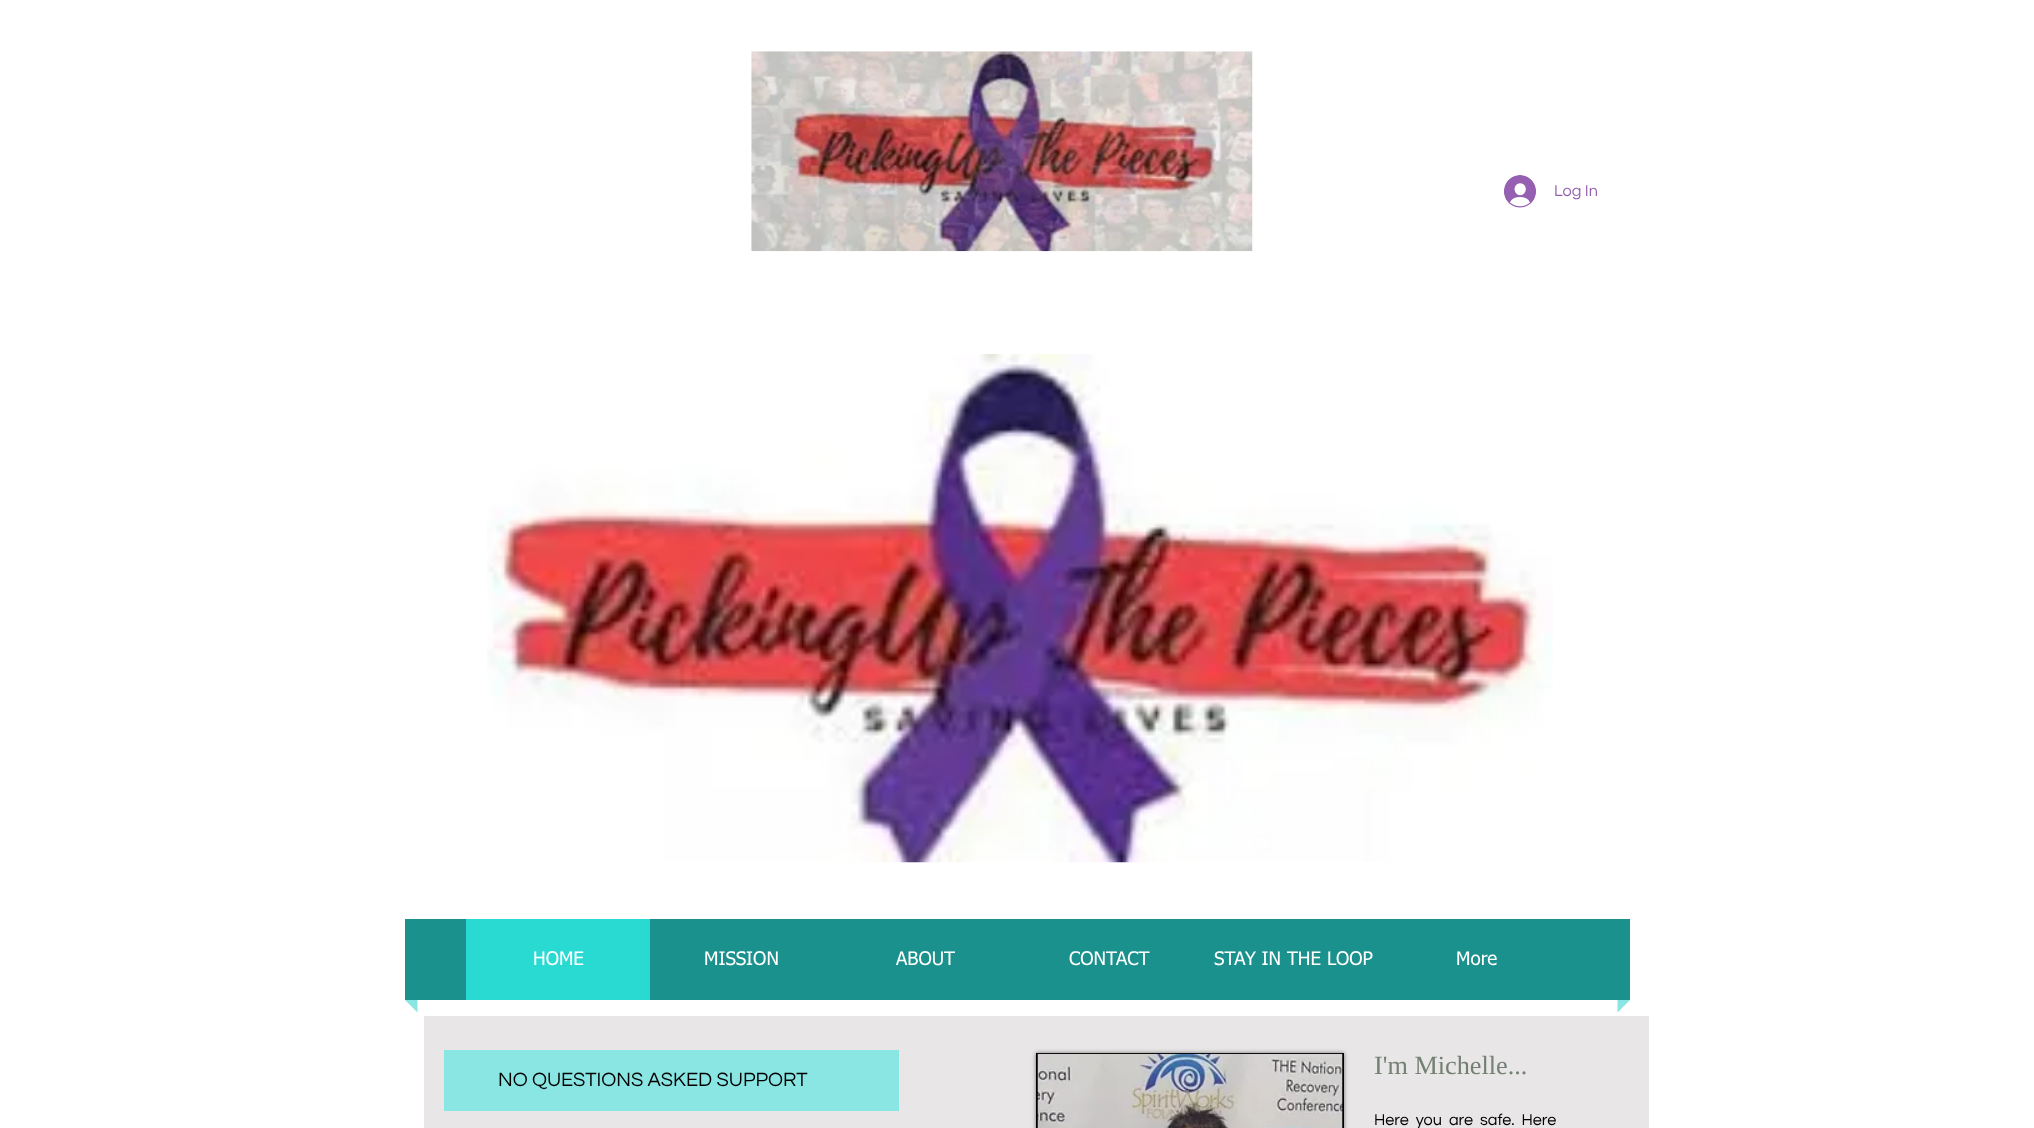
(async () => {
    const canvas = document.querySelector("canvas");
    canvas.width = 2034;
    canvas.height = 1128;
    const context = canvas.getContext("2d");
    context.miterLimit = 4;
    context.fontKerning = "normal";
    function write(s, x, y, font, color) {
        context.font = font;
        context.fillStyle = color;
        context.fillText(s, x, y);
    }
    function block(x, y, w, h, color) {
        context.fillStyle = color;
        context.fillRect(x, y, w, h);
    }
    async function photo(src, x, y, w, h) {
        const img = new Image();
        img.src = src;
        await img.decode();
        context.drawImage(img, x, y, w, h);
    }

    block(0, 0, 2034, 1128, "rgb(255, 255, 255)");
    await photo("media/1.png", 751, 51, 502, 201);
    await photo("media/2.png", 1504, 175, 32, 33);
    write("Log In", 1554, 196, "16.25px Questrial", "rgb(149, 96, 178)");
    await photo("media/3.png", 487, 354, 1066, 509);
    block(405, 919, 1225, 81, "rgb(27, 145, 141)");
    block(466, 919, 184, 81, "rgb(41, 218, 211)");
    write("HOME", 533, 965, "18.75px tahoma", "rgb(255, 255, 255)");
    write("MISSION", 704, 965, "18.75px tahoma", "rgb(255, 255, 255)");
    write("ABOUT", 896, 965, "18.75px tahoma", "rgb(255, 255, 255)");
    write("CONTACT", 1069, 965, "18.75px tahoma", "rgb(255, 255, 255)");
    write("STAY IN THE LOOP", 1214, 965, "18.75px tahoma", "rgb(255, 255, 255)");
    write("More", 1456, 965, "18.75px tahoma", "rgb(255, 255, 255)");
    context.fillStyle = "rgb(137, 230, 227)";
    context.beginPath();
    context.moveTo(405, 1000);
    context.lineTo(417.5, 1000);
    context.lineTo(417.5, 1012.5);
    context.closePath();
    context.fill();
    context.beginPath();
    context.moveTo(1617.5, 1000);
    context.lineTo(1630, 1000);
    context.lineTo(1617.5, 1012.5);
    context.closePath();
    context.fill();
    block(424, 1016, 1225, 112, "rgb(232, 230, 230)");
    block(444, 1050, 455, 61, "rgb(137, 230, 227)");
    write("NO QUESTIONS ASKED SUPPORT", 498, 1086, "20px Questrial", "rgb(0, 0, 0)");
    context.fillStyle = "rgba(0, 0, 0, 0.5)";
    context.filter = "blur(2px)";
    context.beginPath();
    context.rect(1036, 1053, 308, 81);
    context.fill();
    context.filter = "none";
    block(1036, 1053, 308, 75, "rgb(0, 0, 0)");
    await photo("media/4.png", 1037, 1053, 306, 75);
    write("I'm Michelle...", 1374, 1074, "26.25px Liberation Serif", "rgb(116, 128, 116)");
    context.wordSpacing = "3.5px";
    write("Here you are safe. Here", 1374, 1125, "16.25px Questrial", "rgb(0, 0, 0)");
})();
